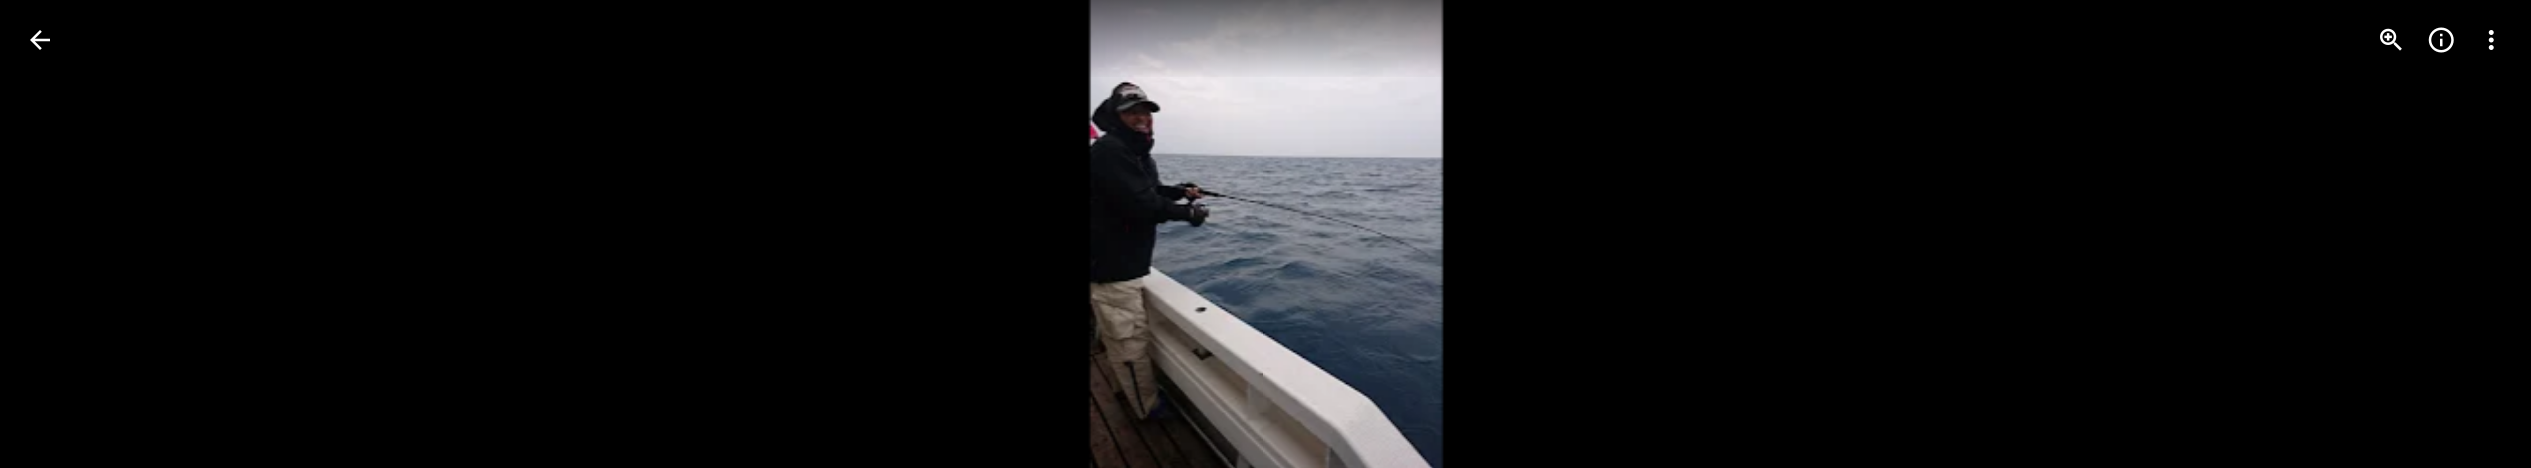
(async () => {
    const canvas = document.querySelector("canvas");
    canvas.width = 2531;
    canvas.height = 468;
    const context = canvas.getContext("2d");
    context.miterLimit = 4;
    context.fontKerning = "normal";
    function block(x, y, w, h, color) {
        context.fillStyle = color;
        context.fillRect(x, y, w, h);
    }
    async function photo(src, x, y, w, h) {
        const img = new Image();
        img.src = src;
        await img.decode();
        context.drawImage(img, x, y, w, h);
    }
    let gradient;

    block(0, 0, 2531, 468, "rgb(0, 0, 0)");
    await photo("media/5.png", 1088, 0, 356, 468);
    gradient = context.createLinearGradient(1266, 0, 1266, 80);
    gradient.addColorStop(0, "rgba(0, 0, 0, 0.6)");
    gradient.addColorStop(1, "rgba(0, 0, 0, 0)");
    context.fillStyle = gradient;
    context.fillRect(1088, 0, 356, 77);
    await photo("media/1.png", 30, 30, 20, 20);
    await photo("media/2.png", 2380, 28, 22, 23);
    await photo("media/3.png", 2428, 27, 26, 26);
    await photo("media/4.png", 2488, 30, 6, 20);
})();
